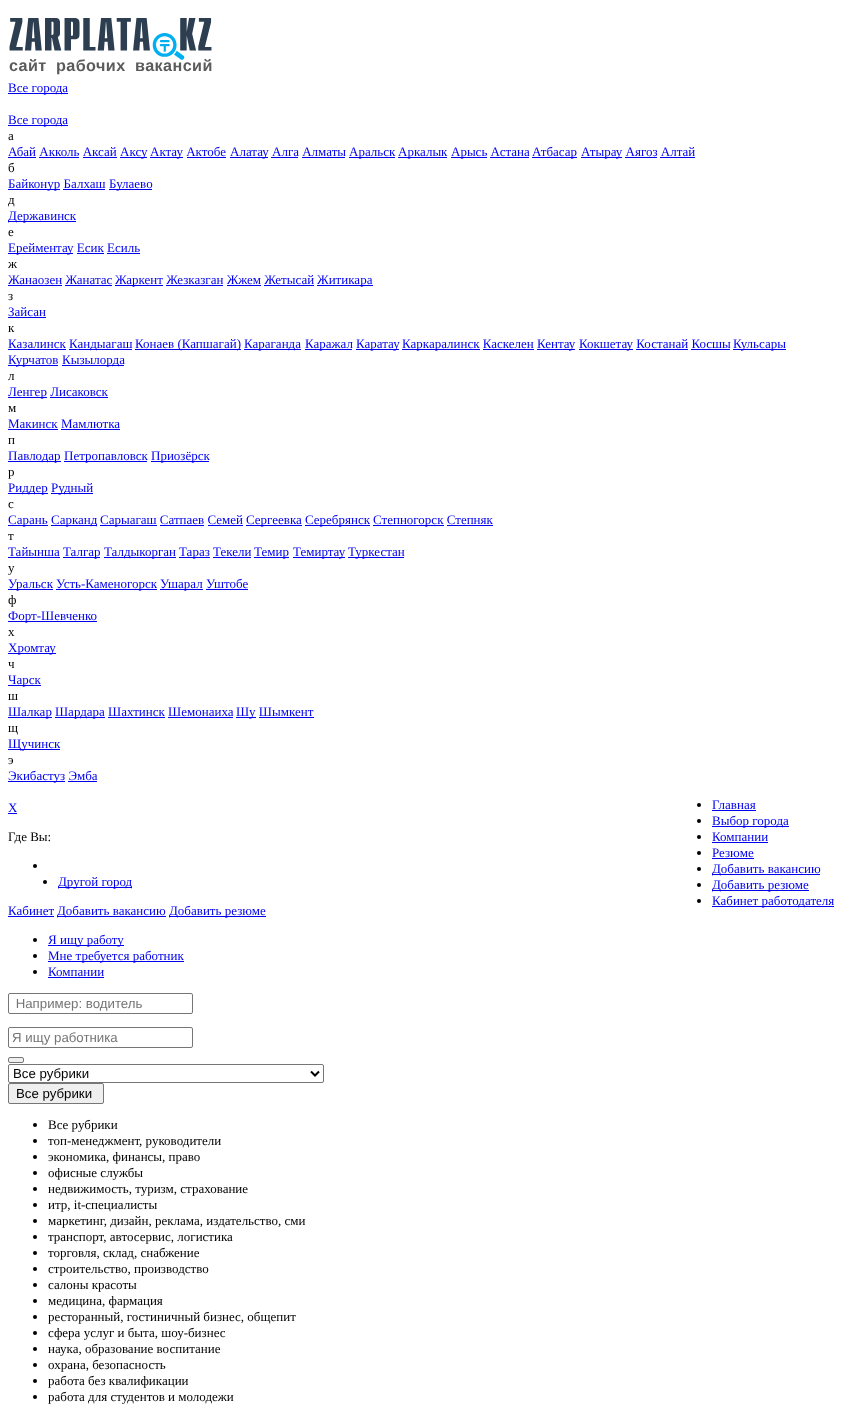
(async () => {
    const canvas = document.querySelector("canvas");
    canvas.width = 842;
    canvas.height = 1404;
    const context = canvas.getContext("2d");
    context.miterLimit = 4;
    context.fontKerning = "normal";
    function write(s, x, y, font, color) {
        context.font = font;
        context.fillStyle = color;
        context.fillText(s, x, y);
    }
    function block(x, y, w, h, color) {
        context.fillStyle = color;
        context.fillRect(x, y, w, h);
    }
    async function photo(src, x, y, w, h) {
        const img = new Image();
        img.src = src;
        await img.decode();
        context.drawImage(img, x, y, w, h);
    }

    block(0, 0, 842, 1404, "rgb(255, 255, 255)");
    await photo("media/1.png", 9, 18, 203, 57);
    block(8, 93, 60, 1, "rgb(0, 0, 238)");
    write("Все города", 8, 92, "13px Liberation Serif", "rgb(0, 0, 238)");
    block(8, 125, 60, 1, "rgb(0, 0, 238)");
    write("Все города", 8, 124, "13px Liberation Serif", "rgb(0, 0, 238)");
    write("а", 8, 140, "13px Liberation Serif", "rgb(0, 0, 0)");
    write("Абай Акколь Аксай", 8, 156, "13px Liberation Serif", "rgb(0, 0, 238)");
    block(8, 157, 28, 1, "rgb(0, 0, 238)");
    block(120, 157, 27, 1, "rgb(0, 0, 238)");
    write("Аксу", 120, 156, "13px Liberation Serif", "rgb(0, 0, 238)");
    block(150, 157, 33, 1, "rgb(0, 0, 238)");
    write("Актау Актобе", 150, 156, "13px Liberation Serif", "rgb(0, 0, 238)");
    block(230, 157, 38, 1, "rgb(0, 0, 238)");
    write("Алатау Алга Алматы", 230, 156, "13px Liberation Serif", "rgb(0, 0, 238)");
    block(349, 157, 46, 1, "rgb(0, 0, 238)");
    write("Аральск", 349, 156, "13px Liberation Serif", "rgb(0, 0, 238)");
    block(398, 157, 49, 1, "rgb(0, 0, 238)");
    write("Аркалык", 398, 156, "13px Liberation Serif", "rgb(0, 0, 238)");
    block(451, 157, 36, 1, "rgb(0, 0, 238)");
    write("Арысь Астана", 451, 156, "13px Liberation Serif", "rgb(0, 0, 238)");
    block(532, 157, 45, 1, "rgb(0, 0, 238)");
    write("Атбасар", 532, 156, "13px Liberation Serif", "rgb(0, 0, 238)");
    block(581, 157, 41, 1, "rgb(0, 0, 238)");
    write("Атырау Аягоз Алтай", 581, 156, "13px Liberation Serif", "rgb(0, 0, 238)");
    block(39, 157, 40, 1, "rgb(0, 0, 238)");
    block(83, 157, 34, 1, "rgb(0, 0, 238)");
    block(187, 157, 39, 1, "rgb(0, 0, 238)");
    block(271, 157, 27, 1, "rgb(0, 0, 238)");
    block(302, 157, 43, 1, "rgb(0, 0, 238)");
    block(490, 157, 39, 1, "rgb(0, 0, 238)");
    block(625, 157, 32, 1, "rgb(0, 0, 238)");
    block(660, 157, 35, 1, "rgb(0, 0, 238)");
    write("б", 8, 172, "13px Liberation Serif", "rgb(0, 0, 0)");
    block(8, 189, 52, 1, "rgb(0, 0, 238)");
    write("Байконур Балхаш", 8, 188, "13px Liberation Serif", "rgb(0, 0, 238)");
    block(109, 189, 43, 1, "rgb(0, 0, 238)");
    write("Булаево", 109, 188, "13px Liberation Serif", "rgb(0, 0, 238)");
    block(63, 189, 42, 1, "rgb(0, 0, 238)");
    write("д", 8, 204, "13px Liberation Serif", "rgb(0, 0, 0)");
    block(8, 221, 68, 1, "rgb(0, 0, 238)");
    write("Державинск", 8, 220, "13px Liberation Serif", "rgb(0, 0, 238)");
    write("е", 8, 236, "13px Liberation Serif", "rgb(0, 0, 0)");
    block(8, 253, 65, 1, "rgb(0, 0, 238)");
    write("Ерейментау Есик Есиль", 8, 252, "13px Liberation Serif", "rgb(0, 0, 238)");
    block(77, 253, 27, 1, "rgb(0, 0, 238)");
    block(107, 253, 33, 1, "rgb(0, 0, 238)");
    write("ж", 8, 268, "13px Liberation Serif", "rgb(0, 0, 0)");
    write("Жанаозен Жанатас", 8, 284, "13px Liberation Serif", "rgb(0, 0, 238)");
    block(8, 285, 54, 1, "rgb(0, 0, 238)");
    block(115, 285, 48, 1, "rgb(0, 0, 238)");
    write("Жаркент Жезказган Жжем Жетысай", 115, 284, "13px Liberation Serif", "rgb(0, 0, 238)");
    block(317, 285, 56, 1, "rgb(0, 0, 238)");
    write("Житикара", 317, 284, "13px Liberation Serif", "rgb(0, 0, 238)");
    block(65, 285, 47, 1, "rgb(0, 0, 238)");
    block(166, 285, 57, 1, "rgb(0, 0, 238)");
    block(227, 285, 34, 1, "rgb(0, 0, 238)");
    block(264, 285, 50, 1, "rgb(0, 0, 238)");
    write("з", 8, 300, "13px Liberation Serif", "rgb(0, 0, 0)");
    write("Зайсан", 8, 316, "13px Liberation Serif", "rgb(0, 0, 238)");
    block(8, 317, 38, 1, "rgb(0, 0, 238)");
    write("к", 8, 332, "13px Liberation Serif", "rgb(0, 0, 0)");
    write("Казалинск", 8, 348, "13px Liberation Serif", "rgb(0, 0, 238)");
    block(8, 349, 58, 1, "rgb(0, 0, 238)");
    block(69, 349, 63, 1, "rgb(0, 0, 238)");
    write("Кандыагаш", 69, 348, "13px Liberation Serif", "rgb(0, 0, 238)");
    block(135, 349, 106, 1, "rgb(0, 0, 238)");
    write("Конаев (Капшагай)", 135, 348, "13px Liberation Serif", "rgb(0, 0, 238)");
    block(244, 349, 57, 1, "rgb(0, 0, 238)");
    write("Караганда", 244, 348, "13px Liberation Serif", "rgb(0, 0, 238)");
    block(305, 349, 47, 1, "rgb(0, 0, 238)");
    write("Каражал", 305, 348, "13px Liberation Serif", "rgb(0, 0, 238)");
    block(356, 349, 43, 1, "rgb(0, 0, 238)");
    write("Каратау", 356, 348, "13px Liberation Serif", "rgb(0, 0, 238)");
    block(402, 349, 78, 1, "rgb(0, 0, 238)");
    write("Каркаралинск Каскелен", 402, 348, "13px Liberation Serif", "rgb(0, 0, 238)");
    block(537, 349, 38, 1, "rgb(0, 0, 238)");
    write("Кентау", 537, 348, "13px Liberation Serif", "rgb(0, 0, 238)");
    block(579, 349, 54, 1, "rgb(0, 0, 238)");
    write("Кокшетау Костанай Косшы", 579, 348, "13px Liberation Serif", "rgb(0, 0, 238)");
    block(733, 349, 53, 1, "rgb(0, 0, 238)");
    write("Кульсары", 733, 348, "13px Liberation Serif", "rgb(0, 0, 238)");
    block(483, 349, 51, 1, "rgb(0, 0, 238)");
    block(636, 349, 52, 1, "rgb(0, 0, 238)");
    block(691, 349, 39, 1, "rgb(0, 0, 238)");
    block(8, 365, 50, 1, "rgb(0, 0, 238)");
    write("Курчатов", 8, 364, "13px Liberation Serif", "rgb(0, 0, 238)");
    block(62, 365, 62, 1, "rgb(0, 0, 238)");
    write("Кызылорда", 62, 364, "13px Liberation Serif", "rgb(0, 0, 238)");
    write("л", 8, 380, "13px Liberation Serif", "rgb(0, 0, 0)");
    block(8, 397, 39, 1, "rgb(0, 0, 238)");
    write("Ленгер Лисаковск", 8, 396, "13px Liberation Serif", "rgb(0, 0, 238)");
    block(50, 397, 58, 1, "rgb(0, 0, 238)");
    write("м", 8, 412, "13px Liberation Serif", "rgb(0, 0, 0)");
    write("Макинск Мамлютка", 8, 428, "13px Liberation Serif", "rgb(0, 0, 238)");
    block(8, 429, 50, 1, "rgb(0, 0, 238)");
    block(61, 429, 59, 1, "rgb(0, 0, 238)");
    write("п", 8, 444, "13px Liberation Serif", "rgb(0, 0, 0)");
    block(8, 461, 53, 1, "rgb(0, 0, 238)");
    write("Павлодар", 8, 460, "13px Liberation Serif", "rgb(0, 0, 238)");
    block(64, 461, 83, 1, "rgb(0, 0, 238)");
    write("Петропавловск", 64, 460, "13px Liberation Serif", "rgb(0, 0, 238)");
    block(151, 461, 58, 1, "rgb(0, 0, 238)");
    write("Приозёрск", 151, 460, "13px Liberation Serif", "rgb(0, 0, 238)");
    write("р", 8, 476, "13px Liberation Serif", "rgb(0, 0, 0)");
    block(8, 493, 40, 1, "rgb(0, 0, 238)");
    write("Риддер", 8, 492, "13px Liberation Serif", "rgb(0, 0, 238)");
    block(51, 493, 42, 1, "rgb(0, 0, 238)");
    write("Рудный", 51, 492, "13px Liberation Serif", "rgb(0, 0, 238)");
    write("с", 8, 508, "13px Liberation Serif", "rgb(0, 0, 0)");
    block(8, 525, 40, 1, "rgb(0, 0, 238)");
    write("Сарань", 8, 524, "13px Liberation Serif", "rgb(0, 0, 238)");
    block(51, 525, 46, 1, "rgb(0, 0, 238)");
    write("Сарканд", 51, 524, "13px Liberation Serif", "rgb(0, 0, 238)");
    block(100, 525, 57, 1, "rgb(0, 0, 238)");
    write("Сарыагаш Сатпаев Семей", 100, 524, "13px Liberation Serif", "rgb(0, 0, 238)");
    block(246, 525, 56, 1, "rgb(0, 0, 238)");
    write("Сергеевка", 246, 524, "13px Liberation Serif", "rgb(0, 0, 238)");
    block(305, 525, 65, 1, "rgb(0, 0, 238)");
    write("Серебрянск", 305, 524, "13px Liberation Serif", "rgb(0, 0, 238)");
    block(373, 525, 71, 1, "rgb(0, 0, 238)");
    write("Степногорск Степняк", 373, 524, "13px Liberation Serif", "rgb(0, 0, 238)");
    block(160, 525, 44, 1, "rgb(0, 0, 238)");
    block(208, 525, 35, 1, "rgb(0, 0, 238)");
    block(447, 525, 46, 1, "rgb(0, 0, 238)");
    write("т", 8, 540, "13px Liberation Serif", "rgb(0, 0, 0)");
    write("Тайынша", 8, 556, "13px Liberation Serif", "rgb(0, 0, 238)");
    block(8, 557, 52, 1, "rgb(0, 0, 238)");
    block(63, 557, 37, 1, "rgb(0, 0, 238)");
    write("Талгар", 63, 556, "13px Liberation Serif", "rgb(0, 0, 238)");
    block(104, 557, 72, 1, "rgb(0, 0, 238)");
    write("Талдыкорган", 104, 556, "13px Liberation Serif", "rgb(0, 0, 238)");
    block(179, 557, 31, 1, "rgb(0, 0, 238)");
    write("Тараз Текели", 179, 556, "13px Liberation Serif", "rgb(0, 0, 238)");
    block(254, 557, 35, 1, "rgb(0, 0, 238)");
    write("Темир", 254, 556, "13px Liberation Serif", "rgb(0, 0, 238)");
    block(293, 557, 52, 1, "rgb(0, 0, 238)");
    write("Темиртау", 293, 556, "13px Liberation Serif", "rgb(0, 0, 238)");
    block(348, 557, 56, 1, "rgb(0, 0, 238)");
    write("Туркестан", 348, 556, "13px Liberation Serif", "rgb(0, 0, 238)");
    block(213, 557, 38, 1, "rgb(0, 0, 238)");
    write("у", 8, 572, "13px Liberation Serif", "rgb(0, 0, 0)");
    block(8, 589, 45, 1, "rgb(0, 0, 238)");
    write("Уральск", 8, 588, "13px Liberation Serif", "rgb(0, 0, 238)");
    block(56, 589, 101, 1, "rgb(0, 0, 238)");
    write("Усть-Каменогорск", 56, 588, "13px Liberation Serif", "rgb(0, 0, 238)");
    block(160, 589, 43, 1, "rgb(0, 0, 238)");
    write("Ушарал Уштобе", 160, 588, "13px Liberation Serif", "rgb(0, 0, 238)");
    block(206, 589, 42, 1, "rgb(0, 0, 238)");
    write("ф", 8, 604, "13px Liberation Serif", "rgb(0, 0, 0)");
    block(8, 621, 89, 1, "rgb(0, 0, 238)");
    write("Форт-Шевченко", 8, 620, "13px Liberation Serif", "rgb(0, 0, 238)");
    write("х", 8, 636, "13px Liberation Serif", "rgb(0, 0, 0)");
    block(8, 653, 48, 1, "rgb(0, 0, 238)");
    write("Хромтау", 8, 652, "13px Liberation Serif", "rgb(0, 0, 238)");
    write("ч", 8, 668, "13px Liberation Serif", "rgb(0, 0, 0)");
    block(8, 685, 33, 1, "rgb(0, 0, 238)");
    write("Чарск", 8, 684, "13px Liberation Serif", "rgb(0, 0, 238)");
    write("ш", 8, 700, "13px Liberation Serif", "rgb(0, 0, 0)");
    block(8, 717, 44, 1, "rgb(0, 0, 238)");
    write("Шалкар", 8, 716, "13px Liberation Serif", "rgb(0, 0, 238)");
    block(55, 717, 50, 1, "rgb(0, 0, 238)");
    write("Шардара Шахтинск Шемонаиха", 55, 716, "13px Liberation Serif", "rgb(0, 0, 238)");
    block(236, 717, 20, 1, "rgb(0, 0, 238)");
    write("Шу Шымкент", 236, 716, "13px Liberation Serif", "rgb(0, 0, 238)");
    block(108, 717, 57, 1, "rgb(0, 0, 238)");
    block(168, 717, 65, 1, "rgb(0, 0, 238)");
    block(259, 717, 55, 1, "rgb(0, 0, 238)");
    write("щ", 8, 732, "13px Liberation Serif", "rgb(0, 0, 0)");
    block(8, 749, 52, 1, "rgb(0, 0, 238)");
    write("Щучинск", 8, 748, "13px Liberation Serif", "rgb(0, 0, 238)");
    write("э", 8, 764, "13px Liberation Serif", "rgb(0, 0, 0)");
    block(8, 781, 57, 1, "rgb(0, 0, 238)");
    write("Экибастуз Эмба", 8, 780, "13px Liberation Serif", "rgb(0, 0, 238)");
    block(68, 781, 29, 1, "rgb(0, 0, 238)");
    write("X", 8, 812, "13px Liberation Serif", "rgb(0, 0, 238)");
    block(8, 813, 9, 1, "rgb(0, 0, 238)");
    write("Где Вы:", 8, 841, "13px Liberation Serif", "rgb(0, 0, 0)");
    context.beginPath();
    context.arc(35, 866, 2, 0, Math.PI * 2);
    context.fill();
    context.beginPath();
    context.arc(45, 882, 2, 0, Math.PI * 2);
    context.fill();
    block(58, 887, 74, 1, "rgb(0, 0, 238)");
    write("Другой город", 58, 886, "13px Liberation Serif", "rgb(0, 0, 238)");
    context.fillStyle = "rgb(0, 0, 0)";
    context.beginPath();
    context.arc(699, 805, 2, 0, Math.PI * 2);
    context.fill();
    write("Главная", 712, 809, "13px Liberation Serif", "rgb(0, 0, 238)");
    block(712, 810, 44, 1, "rgb(0, 0, 238)");
    context.fillStyle = "rgb(0, 0, 0)";
    context.beginPath();
    context.arc(699, 821, 2, 0, Math.PI * 2);
    context.fill();
    block(712, 826, 77, 1, "rgb(0, 0, 238)");
    write("Выбор города", 712, 825, "13px Liberation Serif", "rgb(0, 0, 238)");
    context.fillStyle = "rgb(0, 0, 0)";
    context.beginPath();
    context.arc(699, 837, 2, 0, Math.PI * 2);
    context.fill();
    write("Компании", 712, 841, "13px Liberation Serif", "rgb(0, 0, 238)");
    block(712, 842, 56, 1, "rgb(0, 0, 238)");
    context.fillStyle = "rgb(0, 0, 0)";
    context.beginPath();
    context.arc(699, 853, 2, 0, Math.PI * 2);
    context.fill();
    write("Резюме", 712, 857, "13px Liberation Serif", "rgb(0, 0, 238)");
    block(712, 858, 42, 1, "rgb(0, 0, 238)");
    context.fillStyle = "rgb(0, 0, 0)";
    context.beginPath();
    context.arc(699, 869, 2, 0, Math.PI * 2);
    context.fill();
    block(712, 874, 108, 1, "rgb(0, 0, 238)");
    write("Добавить вакансию", 712, 873, "13px Liberation Serif", "rgb(0, 0, 238)");
    context.fillStyle = "rgb(0, 0, 0)";
    context.beginPath();
    context.arc(699, 885, 2, 0, Math.PI * 2);
    context.fill();
    block(712, 890, 97, 1, "rgb(0, 0, 238)");
    write("Добавить резюме", 712, 889, "13px Liberation Serif", "rgb(0, 0, 238)");
    context.fillStyle = "rgb(0, 0, 0)";
    context.beginPath();
    context.arc(699, 901, 2, 0, Math.PI * 2);
    context.fill();
    block(712, 906, 122, 1, "rgb(0, 0, 238)");
    write("Кабинет работодателя", 712, 905, "13px Liberation Serif", "rgb(0, 0, 238)");
    write("Кабинет", 8, 915, "13px Liberation Serif", "rgb(0, 0, 238)");
    block(8, 916, 46, 1, "rgb(0, 0, 238)");
    block(57, 916, 109, 1, "rgb(0, 0, 238)");
    write("Добавить вакансию", 57, 915, "13px Liberation Serif", "rgb(0, 0, 238)");
    block(169, 916, 97, 1, "rgb(0, 0, 238)");
    write("Добавить резюме", 169, 915, "13px Liberation Serif", "rgb(0, 0, 238)");
    context.fillStyle = "rgb(0, 0, 0)";
    context.beginPath();
    context.arc(35, 940, 2, 0, Math.PI * 2);
    context.fill();
    block(48, 945, 76, 1, "rgb(0, 0, 238)");
    write("Я ищу работу", 48, 944, "13px Liberation Serif", "rgb(0, 0, 238)");
    context.fillStyle = "rgb(0, 0, 0)";
    context.beginPath();
    context.arc(35, 956, 2, 0, Math.PI * 2);
    context.fill();
    block(48, 961, 136, 1, "rgb(0, 0, 238)");
    write("Мне требуется работник", 48, 960, "13px Liberation Serif", "rgb(0, 0, 238)");
    context.fillStyle = "rgb(0, 0, 0)";
    context.beginPath();
    context.arc(35, 972, 2, 0, Math.PI * 2);
    context.fill();
    write("Компании", 48, 976, "13px Liberation Serif", "rgb(0, 0, 238)");
    block(48, 977, 56, 1, "rgb(0, 0, 238)");
    context.beginPath();
    context.roundRect(8.5, 993.5, 184, 20, 1.5);
    context.strokeStyle = "rgb(118, 118, 118)";
    context.stroke();
    write(" Например: водитель", 12, 1008, "13.25px Liberation Sans", "rgb(117, 117, 117)");
    context.beginPath();
    context.roundRect(8.5, 1027.5, 184, 20, 1.5);
    context.stroke();
    write("Я ищу работника", 12, 1042, "13.25px Liberation Sans", "rgb(117, 117, 117)");
    context.fillStyle = "rgb(239, 239, 239)";
    context.beginPath();
    context.roundRect(8.5, 1057.5, 15, 5, 1.5);
    context.fill();
    context.stroke();
    context.beginPath();
    context.roundRect(8.5, 1064.5, 315, 18, 1.5);
    context.stroke();
    context.beginPath();
    context.moveTo(311, 1071.5);
    context.lineTo(315, 1075.5);
    context.lineTo(319, 1071.5);
    context.strokeStyle = "rgb(0, 0, 0)";
    context.lineWidth = 2;
    context.stroke();
    write("Все рубрики", 13, 1078, "13.25px Liberation Sans", "rgb(0, 0, 0)");
    context.fillStyle = "rgb(239, 239, 239)";
    context.beginPath();
    context.roundRect(8.5, 1083.5, 95, 20, 1.5);
    context.fill();
    context.strokeStyle = "rgb(118, 118, 118)";
    context.lineWidth = 1;
    context.stroke();
    write("Все рубрики", 16, 1098, "13.25px Liberation Sans", "rgb(0, 0, 0)");
    context.beginPath();
    context.arc(35, 1125, 2, 0, Math.PI * 2);
    context.fill();
    write("Все рубрики", 48, 1129, "13px Liberation Serif", "rgb(0, 0, 0)");
    context.beginPath();
    context.arc(35, 1141, 2, 0, Math.PI * 2);
    context.fill();
    write("топ-менеджмент, руководители", 48, 1145, "13px Liberation Serif", "rgb(0, 0, 0)");
    context.beginPath();
    context.arc(35, 1157, 2, 0, Math.PI * 2);
    context.fill();
    write("экономика, финансы, право", 48, 1161, "13px Liberation Serif", "rgb(0, 0, 0)");
    context.beginPath();
    context.arc(35, 1173, 2, 0, Math.PI * 2);
    context.fill();
    write("офисные службы", 48, 1177, "13px Liberation Serif", "rgb(0, 0, 0)");
    context.beginPath();
    context.arc(35, 1189, 2, 0, Math.PI * 2);
    context.fill();
    write("недвижимость, туризм, страхование", 48, 1193, "13px Liberation Serif", "rgb(0, 0, 0)");
    context.beginPath();
    context.arc(35, 1205, 2, 0, Math.PI * 2);
    context.fill();
    write("итр, it-специалисты", 48, 1209, "13px Liberation Serif", "rgb(0, 0, 0)");
    context.beginPath();
    context.arc(35, 1221, 2, 0, Math.PI * 2);
    context.fill();
    write("маркетинг, дизайн, реклама, издательство, сми", 48, 1225, "13px Liberation Serif", "rgb(0, 0, 0)");
    context.beginPath();
    context.arc(35, 1237, 2, 0, Math.PI * 2);
    context.fill();
    write("транспорт, автосервис, логистика", 48, 1241, "13px Liberation Serif", "rgb(0, 0, 0)");
    context.beginPath();
    context.arc(35, 1253, 2, 0, Math.PI * 2);
    context.fill();
    write("торговля, склад, снабжение", 48, 1257, "13px Liberation Serif", "rgb(0, 0, 0)");
    context.beginPath();
    context.arc(35, 1269, 2, 0, Math.PI * 2);
    context.fill();
    write("строительство, производство", 48, 1273, "13px Liberation Serif", "rgb(0, 0, 0)");
    context.beginPath();
    context.arc(35, 1285, 2, 0, Math.PI * 2);
    context.fill();
    write("салоны красоты", 48, 1289, "13px Liberation Serif", "rgb(0, 0, 0)");
    context.beginPath();
    context.arc(35, 1301, 2, 0, Math.PI * 2);
    context.fill();
    write("медицина, фармация", 48, 1305, "13px Liberation Serif", "rgb(0, 0, 0)");
    context.beginPath();
    context.arc(35, 1317, 2, 0, Math.PI * 2);
    context.fill();
    write("ресторанный, гостиничный бизнес, общепит", 48, 1321, "13px Liberation Serif", "rgb(0, 0, 0)");
    context.beginPath();
    context.arc(35, 1333, 2, 0, Math.PI * 2);
    context.fill();
    write("сфера услуг и быта, шоу-бизнес", 48, 1337, "13px Liberation Serif", "rgb(0, 0, 0)");
    context.beginPath();
    context.arc(35, 1349, 2, 0, Math.PI * 2);
    context.fill();
    write("наука, образование воспитание", 48, 1353, "13px Liberation Serif", "rgb(0, 0, 0)");
    context.beginPath();
    context.arc(35, 1365, 2, 0, Math.PI * 2);
    context.fill();
    write("охрана, безопасность", 48, 1369, "13px Liberation Serif", "rgb(0, 0, 0)");
    context.beginPath();
    context.arc(35, 1381, 2, 0, Math.PI * 2);
    context.fill();
    write("работа без квалификации", 48, 1385, "13px Liberation Serif", "rgb(0, 0, 0)");
    context.beginPath();
    context.arc(35, 1397, 2, 0, Math.PI * 2);
    context.fill();
    write("работа для студентов и молодежи", 48, 1401, "13px Liberation Serif", "rgb(0, 0, 0)");
})();
